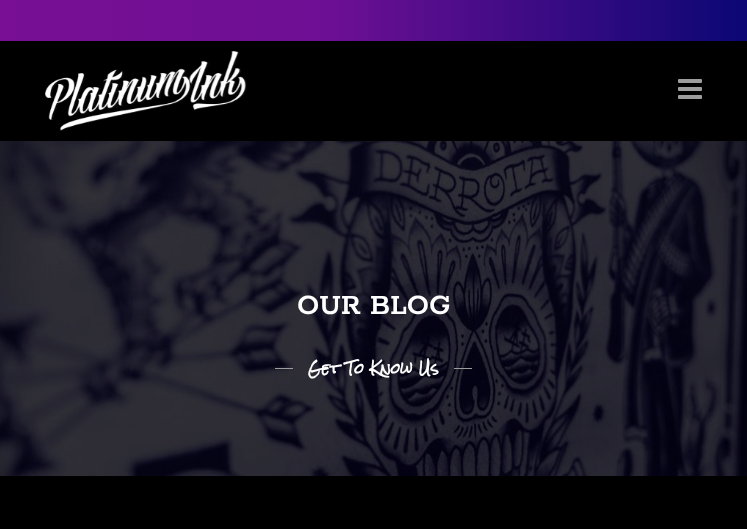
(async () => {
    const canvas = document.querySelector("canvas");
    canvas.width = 747;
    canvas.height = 529;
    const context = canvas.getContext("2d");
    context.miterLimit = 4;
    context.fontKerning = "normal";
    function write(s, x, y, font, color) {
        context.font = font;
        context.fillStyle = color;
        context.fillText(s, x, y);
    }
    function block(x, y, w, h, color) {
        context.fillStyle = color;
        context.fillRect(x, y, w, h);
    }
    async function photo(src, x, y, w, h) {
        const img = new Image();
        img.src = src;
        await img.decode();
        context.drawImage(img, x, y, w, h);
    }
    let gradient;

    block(0, 0, 747, 529, "rgb(0, 0, 0)");
    gradient = context.createLinearGradient(0, 21, 747, 20);
    gradient.addColorStop(0, "rgb(120, 15, 148)");
    gradient.addColorStop(0.44, "rgb(109, 15, 148)");
    gradient.addColorStop(1, "rgb(11, 7, 116)");
    context.fillStyle = gradient;
    context.fillRect(0, 0, 747, 41);
    await photo("media/1.png", 45, 51, 202, 80);
    await photo("media/2.png", 678, 79, 24, 20);
    await photo("media/3.png", 0, 141, 747, 335);
    write("OUR BLOG", 297, 314, "600 31px Rokkitt", "rgb(255, 255, 255)");
    block(275, 368, 18, 1, "rgb(156, 156, 156)");
    write("Get To Know Us", 308, 374, "bold 14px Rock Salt", "rgb(255, 255, 255)");
    block(454, 368, 18, 1, "rgb(156, 156, 156)");
})();
